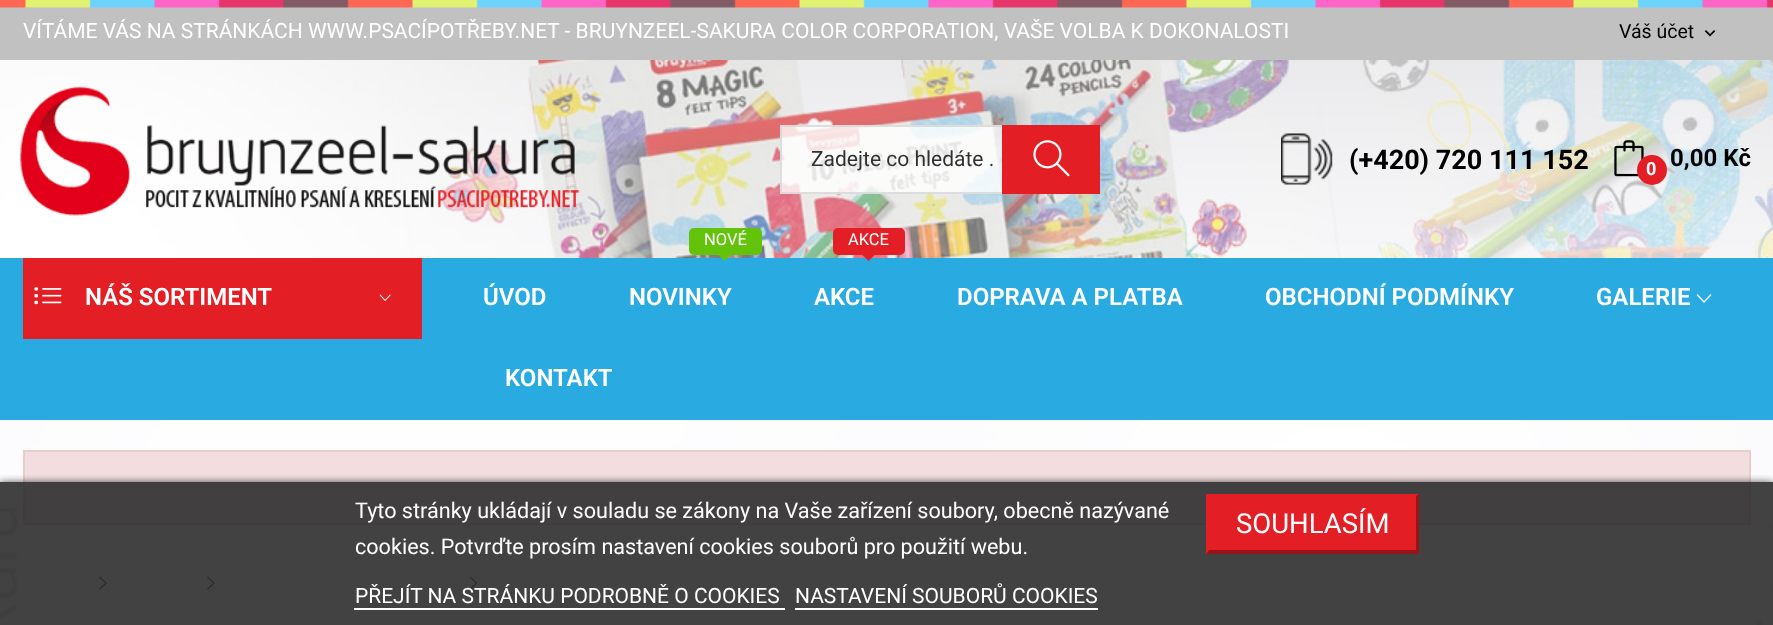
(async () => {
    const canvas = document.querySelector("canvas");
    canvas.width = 1773;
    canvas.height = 625;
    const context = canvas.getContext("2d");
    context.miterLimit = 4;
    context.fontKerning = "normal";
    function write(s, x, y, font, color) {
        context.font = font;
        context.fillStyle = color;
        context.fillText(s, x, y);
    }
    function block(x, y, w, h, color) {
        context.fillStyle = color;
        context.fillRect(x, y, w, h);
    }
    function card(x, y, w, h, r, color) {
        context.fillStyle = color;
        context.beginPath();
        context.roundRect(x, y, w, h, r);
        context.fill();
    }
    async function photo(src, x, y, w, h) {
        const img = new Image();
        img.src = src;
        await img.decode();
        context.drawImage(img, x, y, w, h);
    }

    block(0, 0, 1773, 625, "rgb(255, 255, 255)");
    await photo("media/1.png", 0, 420, 1773, 205);
    await photo("media/2.png", 0, 0, 1773, 60);
    write("VÍTÁME VÁS NA STRÁNKÁCH WWW.PSACÍPOTŘEBY.NET - BRUYNZEEL-SAKURA COLOR CORPORATION, VAŠE VOLBA K DOKONALOSTI", 23, 38, "21px Roboto", "rgb(255, 255, 255)");
    write("Váš účet", 1619, 38, "19.5px Roboto", "rgb(0, 0, 0)");
    await photo("media/3.png", 1704, 30, 12, 7);
    await photo("media/4.png", 0, 60, 1773, 198);
    await photo("media/5.png", 20, 86, 560, 130);
    block(780, 125, 222, 69, "rgba(255, 255, 255, 0.8)");
    context.strokeStyle = "rgba(214, 214, 214, 0.8)";
    context.lineWidth = 2;
    context.strokeRect(781, 126, 318, 67);
    write("Zadejte co hledáte .", 811, 166, "21px Roboto", "rgb(49, 49, 49)");
    block(1002, 125, 98, 69, "rgb(227, 30, 37)");
    await photo("media/6.png", 1033, 140, 37, 37);
    await photo("media/7.png", 1281, 133, 52, 52);
    write("(+420) 720 111 152", 1349, 169, "bold 27px Roboto", "rgb(0, 0, 0)");
    await photo("media/8.png", 1614, 140, 30, 37);
    context.fillStyle = "rgb(227, 30, 37)";
    context.beginPath();
    context.arc(1652, 170, 15, 0, Math.PI * 2);
    context.fill();
    write("0", 1646, 175, "bold 18px Roboto", "rgb(255, 255, 255)");
    write("0,00 Kč", 1670, 166, "bold 24px Roboto", "rgb(0, 0, 0)");
    block(0, 258, 1773, 162, "rgb(41, 171, 226)");
    block(23, 258, 399, 81, "rgb(227, 30, 37)");
    await photo("media/9.png", 34, 287, 28, 18);
    write("NÁŠ SORTIMENT", 85, 305, "600 24px Roboto", "rgb(255, 255, 255)");
    await photo("media/10.png", 379, 294, 12, 7);
    write("ÚVOD", 483, 305, "600 24px Roboto", "rgb(255, 255, 255)");
    card(689, 228, 73, 27, 5, "rgb(99, 194, 10)");
    write("NOVÉ", 704, 245, "16.5px Roboto", "rgb(255, 255, 255)");
    context.fillStyle = "rgb(99, 194, 10)";
    context.beginPath();
    context.moveTo(718.5, 255);
    context.lineTo(730.5, 255);
    context.lineTo(724.5, 261);
    context.closePath();
    context.fill();
    write("NOVINKY", 629, 305, "600 24px Roboto", "rgb(255, 255, 255)");
    card(833, 228, 72, 27, 5, "rgb(227, 30, 37)");
    write("AKCE", 848, 245, "16.5px Roboto", "rgb(255, 255, 255)");
    context.fillStyle = "rgb(227, 30, 37)";
    context.beginPath();
    context.moveTo(862.5, 255);
    context.lineTo(874.5, 255);
    context.lineTo(868.5, 261);
    context.closePath();
    context.fill();
    write("AKCE", 814, 305, "600 24px Roboto", "rgb(255, 255, 255)");
    write("DOPRAVA A PLATBA", 957, 305, "600 24px Roboto", "rgb(255, 255, 255)");
    write("OBCHODNÍ PODMÍNKY", 1265, 305, "600 24px Roboto", "rgb(255, 255, 255)");
    write("GALERIE", 1596, 305, "600 24px Roboto", "rgb(255, 255, 255)");
    await photo("media/11.png", 1696, 294, 16, 9);
    write("KONTAKT", 505, 386, "600 24px Roboto", "rgb(255, 255, 255)");
    context.fillStyle = "rgb(242, 222, 222)";
    context.beginPath();
    context.rect(24, 451, 1726, 73);
    context.fill();
    context.strokeStyle = "rgb(235, 204, 204)";
    context.stroke();
    await photo("media/12.png", 99, 576, 8, 14);
    await photo("media/13.png", 207, 576, 8, 14);
    await photo("media/14.png", 469, 576, 9, 14);
    context.save();
    context.beginPath();
    context.rect(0, 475, 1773, 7);
    context.clip();
    context.fillStyle = "rgb(45, 45, 45)";
    context.filter = "blur(4px)";
    context.beginPath();
    context.rect(0, 483, 1773, 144);
    context.fill();
    context.filter = "none";
    context.restore();
    block(0, 482, 1773, 143, "rgba(45, 45, 45, 0.9)");
    write("Tyto stránky ukládají v souladu se zákony na Vaše zařízení soubory, obecně nazývané", 355, 518, "21.6px Roboto", "rgb(255, 255, 255)");
    write("cookies. Potvrďte prosím nastavení cookies souborů pro použití webu.", 355, 554, "21.6px Roboto", "rgb(255, 255, 255)");
    write("PŘEJÍT NA STRÁNKU PODROBNĚ O COOKIES", 355, 603, "21px Roboto", "rgb(255, 255, 255)");
    block(354, 608, 431, 2, "rgb(255, 255, 255)");
    write("NASTAVENÍ SOUBORŮ COOKIES", 795, 603, "21px Roboto", "rgb(255, 255, 255)");
    block(795, 608, 303, 2, "rgb(255, 255, 255)");
    block(1206, 494, 213, 60, "rgb(227, 30, 37)");
    context.fillStyle = "rgb(151, 20, 25)";
    context.beginPath();
    context.moveTo(1419, 494);
    context.lineTo(1419, 554);
    context.lineTo(1416, 550);
    context.lineTo(1416, 496);
    context.closePath();
    context.fill();
    context.beginPath();
    context.moveTo(1419, 554);
    context.lineTo(1206, 554);
    context.lineTo(1209, 550);
    context.lineTo(1416, 550);
    context.closePath();
    context.fill();
    context.fillStyle = "rgb(227, 30, 37)";
    context.beginPath();
    context.moveTo(1206, 554);
    context.lineTo(1206, 494);
    context.lineTo(1209, 496);
    context.lineTo(1209, 550);
    context.closePath();
    context.fill();
    write("SOUHLASÍM", 1236, 533, "27.5px Roboto", "rgb(255, 255, 255)");
})();
